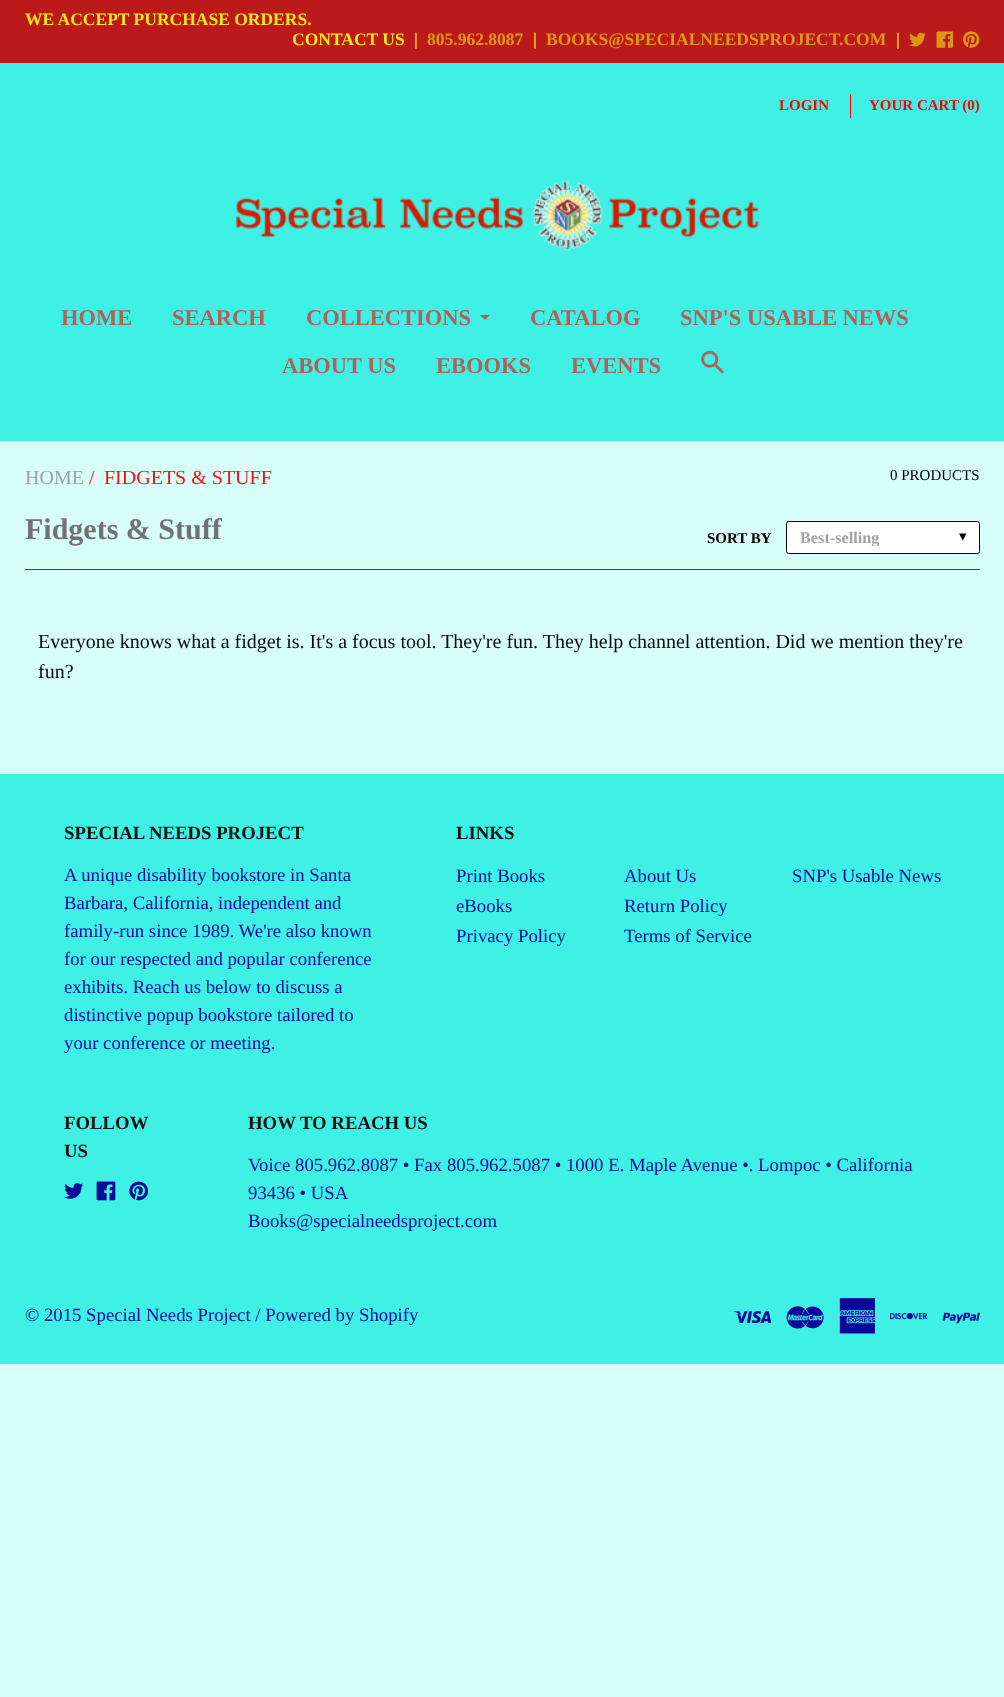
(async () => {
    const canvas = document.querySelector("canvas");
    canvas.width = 1004;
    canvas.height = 1697;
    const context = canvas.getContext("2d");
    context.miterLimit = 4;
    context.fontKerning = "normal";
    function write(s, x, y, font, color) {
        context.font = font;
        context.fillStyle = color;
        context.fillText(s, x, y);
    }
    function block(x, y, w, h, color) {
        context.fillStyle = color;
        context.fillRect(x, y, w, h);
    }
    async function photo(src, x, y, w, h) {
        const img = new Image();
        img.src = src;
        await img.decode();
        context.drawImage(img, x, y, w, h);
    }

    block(0, 0, 1004, 1697, "rgb(215, 255, 248)");
    block(0, 0, 1004, 63, "rgb(188, 26, 26)");
    write("WE ACCEPT PURCHASE ORDERS.", 25, 25, "bold 17.5px Liberation Serif", "rgb(245, 234, 23)");
    write("CONTACT US", 292, 45, "bold 17.5px Liberation Serif", "rgb(245, 234, 23)");
    write("|", 414, 45, "bold 17.5px Liberation Serif", "rgb(245, 234, 23)");
    write("805.962.8087", 427, 45, "bold 17.5px Liberation Serif", "rgb(222, 151, 24)");
    write("|", 533, 45, "bold 17.5px Liberation Serif", "rgb(245, 234, 23)");
    write("BOOKS@SPECIALNEEDSPROJECT.COM", 546, 45, "bold 17.5px Liberation Serif", "rgb(222, 151, 24)");
    write("|", 896, 45, "bold 17.5px Liberation Serif", "rgb(245, 234, 23)");
    await photo("media/1.png", 909, 32, 17, 15);
    await photo("media/2.png", 936, 31, 17, 17);
    await photo("media/3.png", 963, 31, 17, 17);
    block(0, 63, 1004, 378, "rgb(63, 240, 229)");
    write("LOGIN", 779, 110, "bold 15px Liberation Serif", "rgb(255, 0, 0)");
    block(850, 94, 1, 24, "rgb(255, 0, 0)");
    write("YOUR CART (0)", 869, 110, "bold 15px Liberation Serif", "rgb(255, 0, 0)");
    await photo("media/4.png", 236, 180, 523, 71);
    write("HOME", 61, 325, "bold 22.5px Liberation Serif", "rgb(178, 96, 92)");
    write("SEARCH", 172, 325, "bold 22.5px Liberation Serif", "rgb(178, 96, 92)");
    write("COLLECTIONS", 306, 325, "bold 22.5px Liberation Serif", "rgb(178, 96, 92)");
    context.beginPath();
    context.moveTo(480, 315);
    context.lineTo(490, 315);
    context.lineTo(485, 320);
    context.closePath();
    context.fill();
    write("CATALOG", 530, 325, "bold 22.5px Liberation Serif", "rgb(178, 96, 92)");
    write("SNP'S USABLE NEWS", 680, 325, "bold 22.5px Liberation Serif", "rgb(178, 96, 92)");
    write("ABOUT US", 282, 373, "bold 22.5px Liberation Serif", "rgb(178, 96, 92)");
    write("EBOOKS", 436, 373, "bold 22.5px Liberation Serif", "rgb(178, 96, 92)");
    write("EVENTS", 571, 373, "bold 22.5px Liberation Serif", "rgb(178, 96, 92)");
    await photo("media/5.png", 701, 350, 23, 24);
    write("HOME", 25, 484, "20px Liberation Serif", "rgb(162, 162, 162)");
    write("/", 89, 484, "20px Liberation Serif", "rgb(236, 21, 21)");
    write("FIDGETS & STUFF", 104, 484, "20px Liberation Serif", "rgb(236, 21, 21)");
    write("0 PRODUCTS", 890, 480, "15px Liberation Serif", "rgb(0, 0, 0)");
    block(25, 569, 955, 1, "rgb(47, 53, 220)");
    write("Fidgets & Stuff", 25, 539, "bold 30px Liberation Serif", "rgb(116, 113, 113)");
    write("SORT BY", 707, 543, "bold 15px Liberation Serif", "rgb(0, 0, 0)");
    context.fillStyle = "rgb(255, 255, 255)";
    context.beginPath();
    context.roundRect(786.5, 521.5, 193, 32, 2);
    context.fill();
    context.strokeStyle = "rgb(10, 10, 10)";
    context.stroke();
    context.save();
    context.beginPath();
    context.rect(800, 530, 149, 16);
    context.clip();
    write("Best-selling", 800, 543, "bold 16.25px Liberation Serif", "rgb(162, 162, 162)");
    context.restore();
    write("▾", 959, 541, "15px DejaVu Sans", "rgb(0, 0, 0)");
    write("Everyone knows what a fidget is. It's a focus tool. They're fun. They help channel attention. Did we mention they're", 38, 648, "20px Liberation Serif", "rgb(10, 9, 9)");
    write("fun?", 38, 678, "20px Liberation Serif", "rgb(10, 9, 9)");
    block(0, 774, 1004, 590, "rgb(63, 240, 229)");
    write("SPECIAL NEEDS PROJECT", 64, 839, "bold 18.75px Liberation Serif", "rgb(15, 16, 16)");
    write("A unique disability bookstore in Santa", 64, 881, "18.75px Liberation Serif", "rgb(12, 8, 153)");
    write("Barbara, California, independent and", 64, 909, "18.75px Liberation Serif", "rgb(12, 8, 153)");
    write("family-run since 1989. We're also known", 64, 937, "18.75px Liberation Serif", "rgb(12, 8, 153)");
    write("for our respected and popular conference", 64, 965, "18.75px Liberation Serif", "rgb(12, 8, 153)");
    write("exhibits. Reach us below to discuss a", 64, 993, "18.75px Liberation Serif", "rgb(12, 8, 153)");
    write("distinctive popup bookstore tailored to", 64, 1021, "18.75px Liberation Serif", "rgb(12, 8, 153)");
    write("your conference or meeting.", 64, 1049, "18.75px Liberation Serif", "rgb(12, 8, 153)");
    write("LINKS", 456, 839, "bold 18.75px Liberation Serif", "rgb(15, 16, 16)");
    write("Print Books", 456, 882, "18.75px Liberation Serif", "rgb(12, 8, 153)");
    write("About Us", 624, 882, "18.75px Liberation Serif", "rgb(12, 8, 153)");
    write("SNP's Usable News", 792, 882, "18.75px Liberation Serif", "rgb(12, 8, 153)");
    write("eBooks", 456, 912, "18.75px Liberation Serif", "rgb(12, 8, 153)");
    write("Return Policy", 624, 912, "18.75px Liberation Serif", "rgb(12, 8, 153)");
    write("Privacy Policy", 456, 942, "18.75px Liberation Serif", "rgb(12, 8, 153)");
    write("Terms of Service", 624, 942, "18.75px Liberation Serif", "rgb(12, 8, 153)");
    write("FOLLOW", 64, 1129, "bold 18.75px Liberation Serif", "rgb(15, 16, 16)");
    write("US", 64, 1157, "bold 18.75px Liberation Serif", "rgb(15, 16, 16)");
    await photo("media/6.png", 64, 1183, 20, 16);
    await photo("media/7.png", 96, 1181, 20, 20);
    await photo("media/8.png", 129, 1181, 20, 20);
    write("HOW TO REACH US", 248, 1129, "bold 18.75px Liberation Serif", "rgb(15, 16, 16)");
    write("Voice 805.962.8087 • Fax 805.962.5087 • 1000 E. Maple Avenue •. Lompoc • California", 248, 1171, "18.75px Liberation Serif", "rgb(12, 8, 153)");
    write("93436 • USA", 248, 1199, "18.75px Liberation Serif", "rgb(12, 8, 153)");
    write("Books@specialneedsproject.com", 248, 1227, "18.75px Liberation Serif", "rgb(12, 8, 153)");
    write("© 2015 Special Needs Project / Powered by Shopify", 25, 1321, "18.75px Liberation Serif", "rgb(12, 8, 153)");
    await photo("media/9.png", 733, 1311, 39, 13);
    await photo("media/10.png", 786, 1306, 38, 23);
    await photo("media/11.png", 839, 1298, 37, 36);
    await photo("media/12.png", 890, 1313, 38, 7);
    await photo("media/13.png", 942, 1312, 38, 12);
})();
